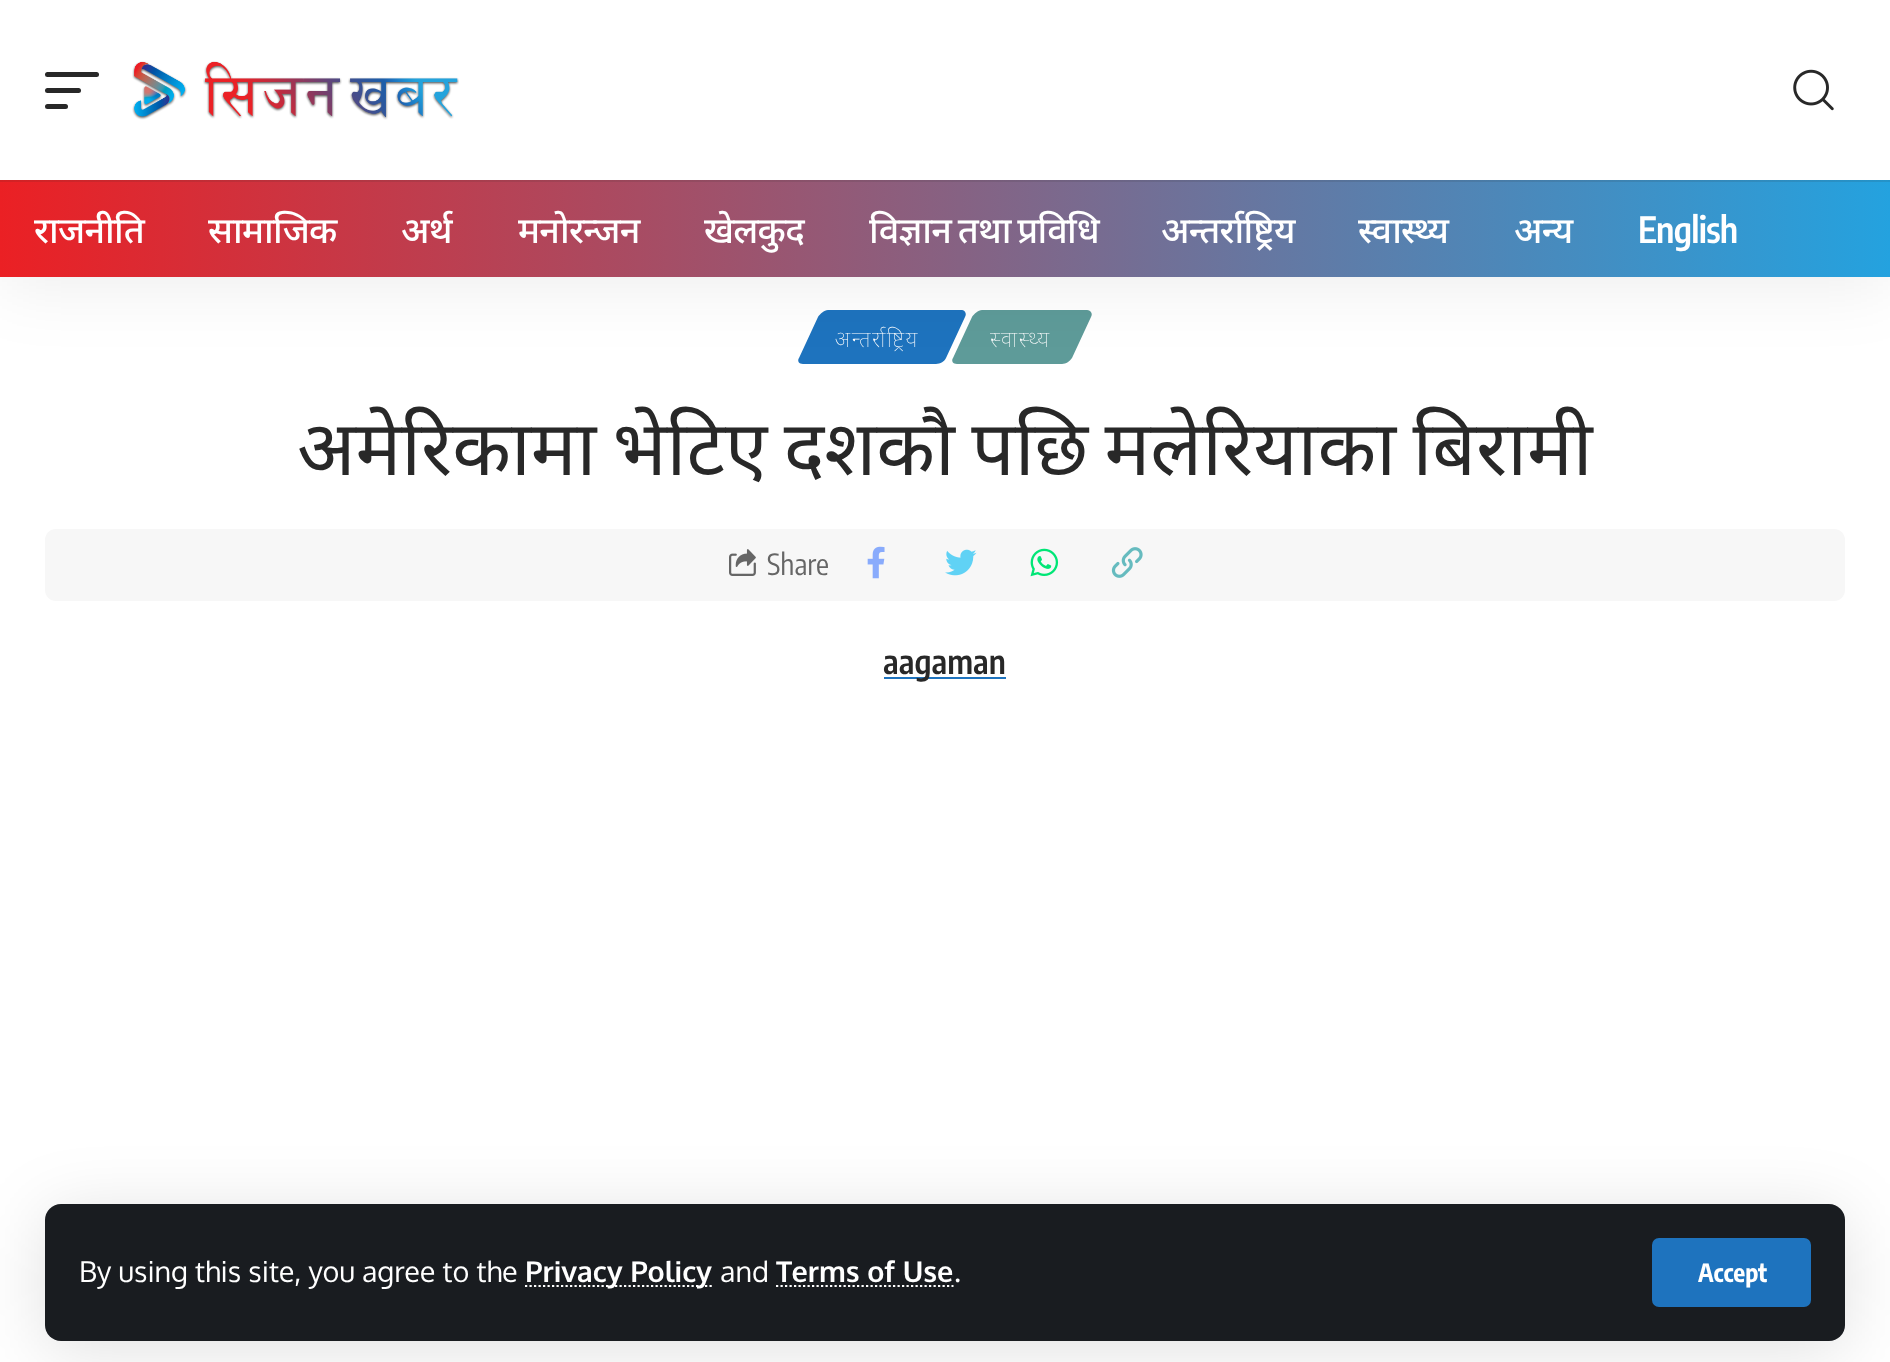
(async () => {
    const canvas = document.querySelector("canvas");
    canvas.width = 1890;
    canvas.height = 1362;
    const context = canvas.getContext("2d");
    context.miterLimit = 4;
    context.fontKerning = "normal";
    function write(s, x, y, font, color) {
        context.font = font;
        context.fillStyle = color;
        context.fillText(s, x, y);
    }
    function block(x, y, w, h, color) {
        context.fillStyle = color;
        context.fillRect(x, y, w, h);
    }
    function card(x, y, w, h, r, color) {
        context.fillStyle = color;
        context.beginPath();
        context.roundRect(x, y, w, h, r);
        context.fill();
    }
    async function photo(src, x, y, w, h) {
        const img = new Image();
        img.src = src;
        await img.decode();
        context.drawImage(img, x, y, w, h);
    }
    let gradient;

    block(0, 0, 1890, 1362, "rgb(255, 255, 255)");
    context.fillStyle = "rgb(30, 115, 190)";
    context.beginPath();
    context.moveTo(828, 310);
    context.lineTo(962, 310);
    context.bezierCurveTo(965, 310, 967, 314, 965, 317);
    context.lineTo(946, 358);
    context.bezierCurveTo(945, 361, 940, 364, 936, 364);
    context.lineTo(803, 364);
    context.bezierCurveTo(799, 364, 797, 361, 799, 358);
    context.lineTo(818, 317);
    context.bezierCurveTo(820, 314, 824, 310, 828, 310);
    context.closePath();
    context.fill();
    context.fillStyle = "rgb(94, 155, 153)";
    context.beginPath();
    context.moveTo(982, 310);
    context.lineTo(1087, 310);
    context.bezierCurveTo(1091, 310, 1093, 314, 1091, 317);
    context.lineTo(1072, 358);
    context.bezierCurveTo(1070, 361, 1066, 364, 1062, 364);
    context.lineTo(957, 364);
    context.bezierCurveTo(953, 364, 951, 361, 953, 358);
    context.lineTo(972, 317);
    context.bezierCurveTo(974, 314, 978, 310, 982, 310);
    context.closePath();
    context.fill();
    context.fillStyle = "rgba(0, 0, 0, 0.07)";
    context.filter = "blur(34px)";
    context.beginPath();
    context.rect(0, 9, 1890, 277);
    context.fill();
    context.filter = "none";
    block(0, 0, 1890, 180, "rgb(255, 255, 255)");
    card(45, 72, 54, 5, 2.5, "rgb(40, 40, 40)");
    card(45, 88, 36, 5, 2.5, "rgb(40, 40, 40)");
    card(45, 104, 23, 5, 2.5, "rgb(40, 40, 40)");
    await photo("media/1.png", 132, 61, 327, 59);
    await photo("media/2.png", 1793, 69, 41, 42);
    gradient = context.createLinearGradient(0, 230, 1890, 229);
    gradient.addColorStop(0, "rgb(235, 32, 36)");
    gradient.addColorStop(1, "rgb(36, 162, 223)");
    context.fillStyle = gradient;
    context.fillRect(0, 182, 1890, 95);
    gradient = context.createLinearGradient(0, 230, 1890, 229);
    gradient.addColorStop(0, "rgb(212, 33, 36)");
    gradient.addColorStop(1, "rgb(36, 147, 201)");
    context.fillStyle = gradient;
    context.fillRect(0, 180, 1890, 2);
    context.letterSpacing = "-0.75px";
    write("राजनीति", 34, 243, "500 36px Noto Sans", "rgb(255, 255, 255)");
    write("सामाजिक", 208, 243, "500 36px Noto Sans", "rgb(255, 255, 255)");
    write("अर्थ", 401, 243, "500 36px Noto Sans", "rgb(255, 255, 255)");
    write("मनोरन्जन", 518, 243, "500 36px Noto Sans", "rgb(255, 255, 255)");
    write("खेलकुद", 704, 243, "500 36px Noto Sans", "rgb(255, 255, 255)");
    context.wordSpacing = "-2px";
    write("विज्ञान तथा प्रविधि", 869, 243, "500 36px Noto Sans", "rgb(255, 255, 255)");
    context.wordSpacing = "0px";
    write("अन्तर्राष्ट्रिय", 1161, 243, "500 36px Noto Sans", "rgb(255, 255, 255)");
    write("स्वास्थ्य", 1358, 243, "500 36px Noto Sans", "rgb(255, 255, 255)");
    write("अन्य", 1514, 243, "500 36px Noto Sans", "rgb(255, 255, 255)");
    write("English", 1638, 243, "600 36px Encode Sans Condensed", "rgb(255, 255, 255)");
    context.fillStyle = "rgba(0, 0, 0, 0.12)";
    context.filter = "blur(34px)";
    context.beginPath();
    context.roundRect(45, 1213, 1800, 137, 16);
    context.fill();
    context.filter = "none";
    card(45, 1204, 1800, 137, 16, "rgb(25, 28, 32)");
    context.letterSpacing = "0px";
    write("By using this site, you agree to the", 79, 1282, "28.75px Oxygen", "rgb(255, 255, 255)");
    context.beginPath();
    context.moveTo(525, 1286);
    context.lineTo(712.5, 1286);
    context.strokeStyle = "rgb(255, 255, 255)";
    context.lineWidth = 2.2;
    context.setLineDash([2.25, 2.25]);
    context.stroke();
    write("Privacy Policy", 525, 1282, "bold 28.75px Oxygen", "rgb(255, 255, 255)");
    write("and", 720, 1282, "28.75px Oxygen", "rgb(255, 255, 255)");
    write("Terms of Use", 776, 1282, "bold 28.75px Oxygen", "rgb(255, 255, 255)");
    context.beginPath();
    context.moveTo(776, 1286);
    context.lineTo(953.5, 1286);
    context.stroke();
    write(".", 954, 1282, "28.75px Oxygen", "rgb(255, 255, 255)");
    card(1652, 1238, 159, 69, 7, "rgb(30, 115, 190)");
    write("Accept", 1698, 1282, "bold 25px Encode Sans Condensed", "rgb(255, 255, 255)");
    context.letterSpacing = "1.6px";
    write("अन्तर्राष्ट्रिय", 835, 347, "100 22.5px Noto Sans", "rgb(255, 255, 255)");
    write("स्वास्थ्य", 990, 347, "100 22.5px Noto Sans", "rgb(255, 255, 255)");
    context.letterSpacing = "0px";
    context.wordSpacing = "-3.5px";
    write("अमेरिकामा भेटिए दशकौ‌ पछि मलेरियाका बिरामी", 297, 475, "76.5px Noto Sans", "rgb(40, 40, 40)");
    card(45, 529, 1800, 72, 11, "rgb(247, 247, 247)");
    await photo("media/3.png", 729, 549, 27, 27);
    context.wordSpacing = "0px";
    write("Share", 767, 575, "29px Encode Sans Condensed", "rgb(102, 102, 102)");
    await photo("media/4.png", 867, 546, 18, 33);
    await photo("media/5.png", 945, 549, 32, 27);
    await photo("media/6.png", 1030, 548, 29, 29);
    await photo("media/7.png", 1111, 547, 32, 31);
    block(884, 677, 122, 2, "rgb(30, 115, 190)");
    write("aagaman", 883, 674, "600 33.5px Encode Sans Condensed", "rgb(40, 40, 40)");
})();
